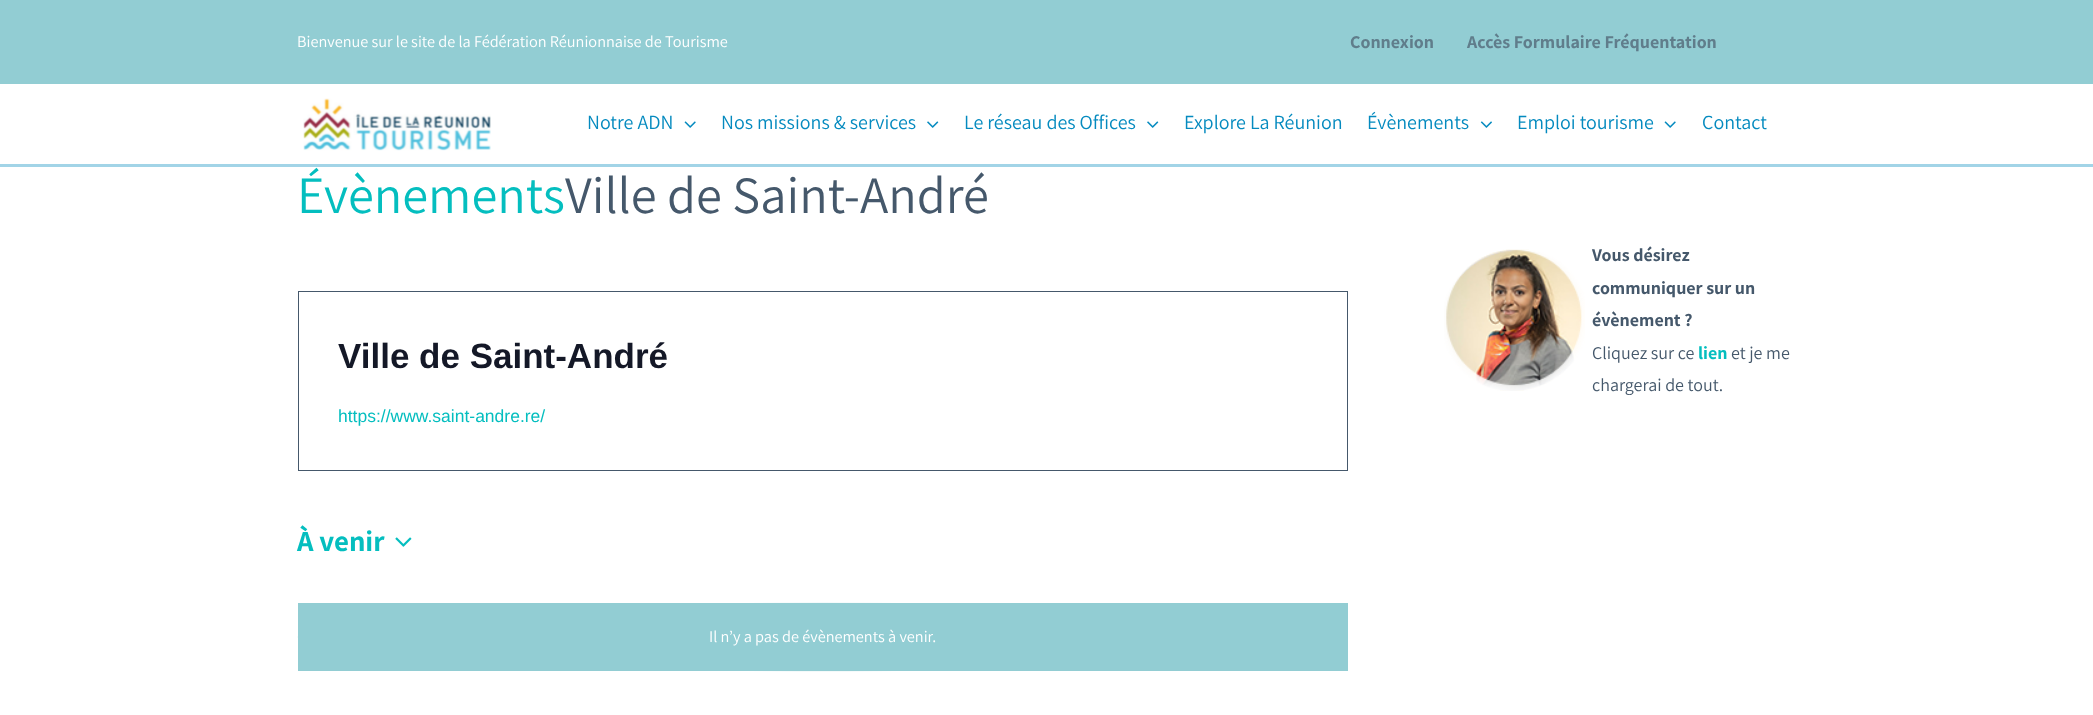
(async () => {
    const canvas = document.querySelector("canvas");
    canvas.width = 2093;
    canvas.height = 715;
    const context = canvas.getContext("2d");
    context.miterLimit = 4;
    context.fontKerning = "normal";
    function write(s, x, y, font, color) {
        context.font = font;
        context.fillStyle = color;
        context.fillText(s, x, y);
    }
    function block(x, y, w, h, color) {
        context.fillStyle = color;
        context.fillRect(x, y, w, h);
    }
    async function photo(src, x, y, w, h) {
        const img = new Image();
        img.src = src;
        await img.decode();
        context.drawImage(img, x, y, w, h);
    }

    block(0, 0, 2093, 715, "rgb(255, 255, 255)");
    block(0, 0, 2093, 84, "rgb(146, 205, 211)");
    write("Bienvenue sur le site de la Fédération Réunionnaise de Tourisme", 297, 47, "16.25px Assistant", "rgb(255, 255, 255)");
    write("Connexion", 1350, 48, "bold 18px Assistant", "rgb(96, 125, 139)");
    write("Accès Formulaire Fréquentation", 1467, 48, "bold 18px Assistant", "rgb(96, 125, 139)");
    block(0, 164, 2093, 3, "rgb(162, 212, 231)");
    await photo("media/1.png", 303, 98, 188, 53);
    write("Notre ADN", 587, 129, "20px Assistant", "rgb(4, 138, 191)");
    await photo("media/2.png", 684, 121, 12, 7);
    write("Nos missions & services", 721, 129, "20px Assistant", "rgb(4, 138, 191)");
    await photo("media/3.png", 927, 121, 12, 7);
    write("Le réseau des Offices", 964, 129, "20px Assistant", "rgb(4, 138, 191)");
    await photo("media/3.png", 1147, 121, 12, 7);
    write("Explore La Réunion", 1184, 129, "20px Assistant", "rgb(4, 138, 191)");
    write("Évènements", 1367, 129, "20px Assistant", "rgb(4, 138, 191)");
    await photo("media/4.png", 1480, 121, 12, 7);
    write("Emploi tourisme", 1517, 129, "20px Assistant", "rgb(4, 138, 191)");
    await photo("media/2.png", 1664, 121, 12, 7);
    write("Contact", 1702, 129, "20px Assistant", "rgb(4, 138, 191)");
    write("Évènements", 297, 213, "52.5px Assistant", "rgb(4, 190, 191)");
    write("Ville de Saint-André", 565, 213, "52.5px Assistant", "rgb(69, 88, 107)");
    context.strokeStyle = "rgb(69, 88, 107)";
    context.strokeRect(298.5, 291.5, 1049, 179);
    write("Ville de Saint-André", 338, 368, "bold 35px Liberation Sans", "rgb(20, 24, 39)");
    write("https://www.saint-andre.re/", 338, 422, "17.5px Liberation Sans", "rgb(4, 190, 191)");
    write("À venir", 297, 551, "bold 29px Assistant", "rgb(4, 190, 191)");
    await photo("media/5.png", 395, 537, 17, 10);
    context.fillStyle = "rgb(233, 245, 246)";
    context.beginPath();
    context.ellipse(822.5, 637, 525, 34.5, 0, 0, Math.PI * 2);
    context.fill();
    block(298, 603, 1050, 68, "rgb(146, 205, 211)");
    write("Il n’y a pas de évènements à venir.", 709, 642, "16.25px Assistant", "rgb(255, 255, 255)");
    await photo("media/6.png", 1444, 249, 141, 142);
    write("Vous désirez", 1592, 261, "bold 18px Assistant", "rgb(69, 88, 107)");
    write("communiquer sur un", 1592, 294, "bold 18px Assistant", "rgb(69, 88, 107)");
    write("évènement ?", 1592, 326, "bold 18px Assistant", "rgb(69, 88, 107)");
    write("Cliquez sur ce", 1592, 359, "18px Assistant", "rgb(69, 88, 107)");
    write("lien", 1698, 359, "bold 18px Assistant", "rgb(4, 190, 191)");
    write("et je me", 1731, 359, "18px Assistant", "rgb(69, 88, 107)");
    write("chargerai de tout.", 1592, 391, "18px Assistant", "rgb(69, 88, 107)");
})();
